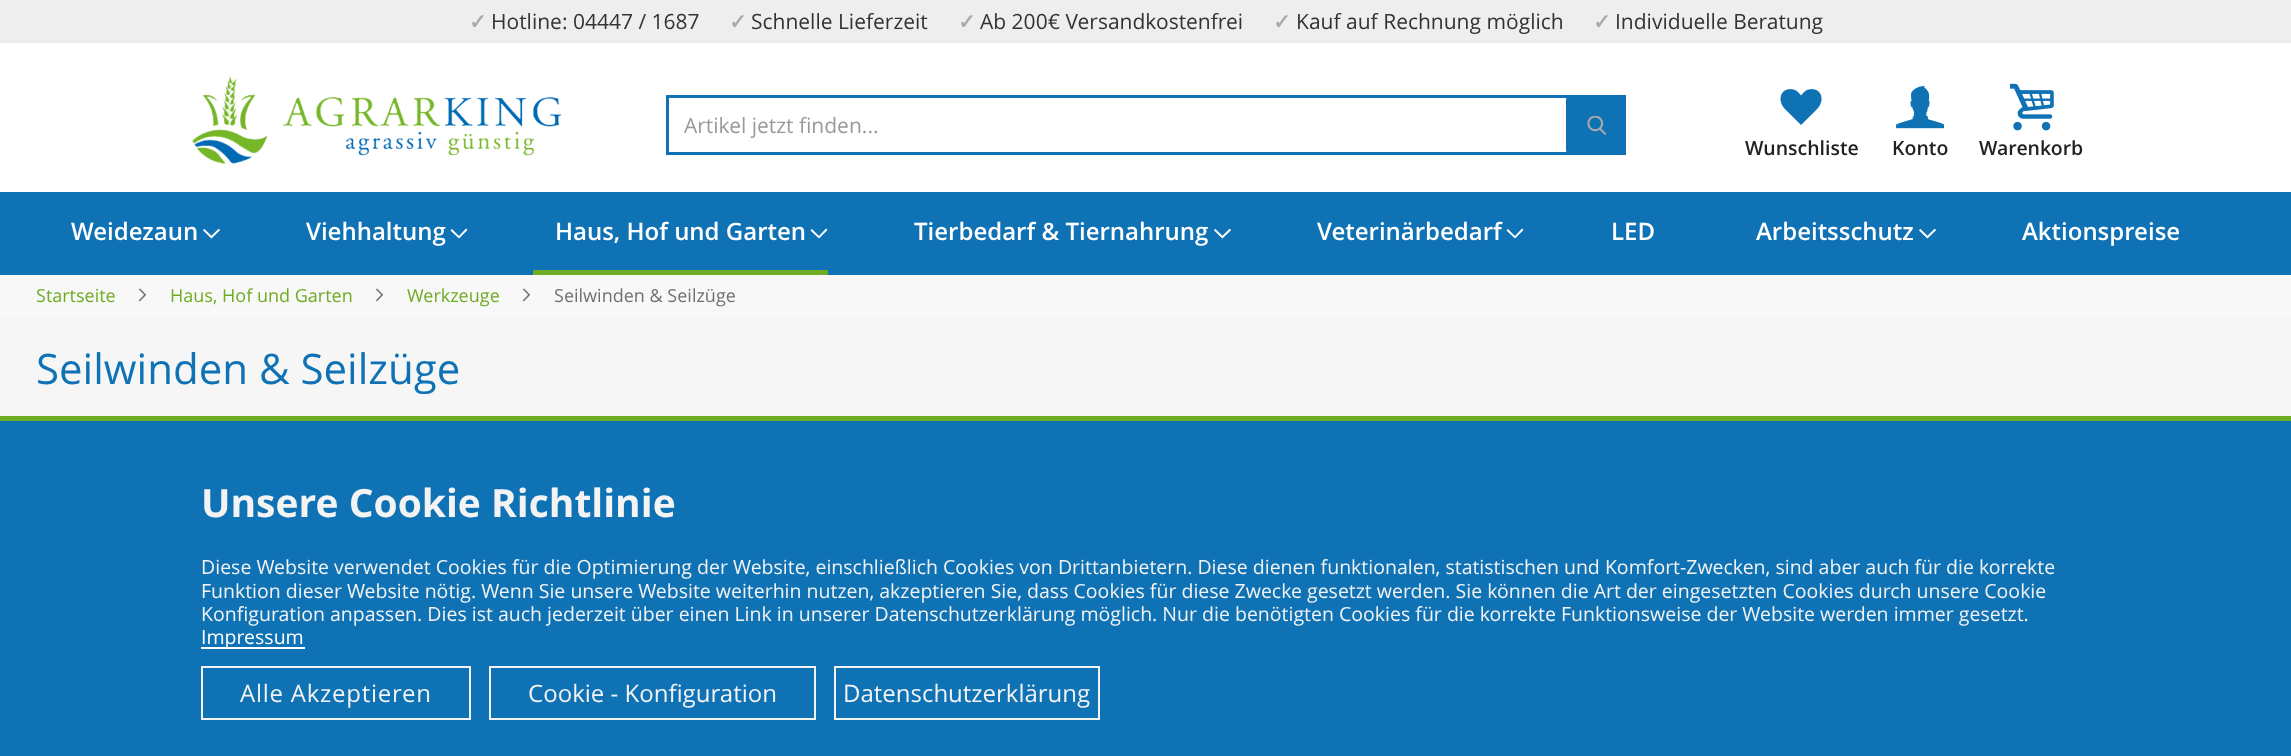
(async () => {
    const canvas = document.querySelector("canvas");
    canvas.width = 2291;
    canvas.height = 756;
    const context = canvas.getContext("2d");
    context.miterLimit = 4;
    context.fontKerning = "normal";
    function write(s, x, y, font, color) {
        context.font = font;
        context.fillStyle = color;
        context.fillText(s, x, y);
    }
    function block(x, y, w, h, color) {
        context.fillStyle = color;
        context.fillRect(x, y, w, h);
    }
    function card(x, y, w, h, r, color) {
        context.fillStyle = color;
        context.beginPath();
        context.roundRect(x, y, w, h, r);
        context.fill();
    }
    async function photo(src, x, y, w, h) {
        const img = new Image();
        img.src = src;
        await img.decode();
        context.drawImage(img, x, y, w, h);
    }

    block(0, 0, 2291, 756, "rgb(255, 255, 255)");
    block(0, 0, 2291, 41, "rgb(238, 238, 238)");
    block(0, 41, 2291, 2, "rgb(236, 236, 236)");
    write("✓", 469, 29, "bold 21px DejaVu Sans", "rgb(170, 170, 170)");
    write("Hotline: 04447 / 1687", 491, 29, "21px Open Sans", "rgb(51, 51, 51)");
    write("✓", 729, 29, "bold 21px DejaVu Sans", "rgb(170, 170, 170)");
    write("Schnelle Lieferzeit", 751, 29, "21px Open Sans", "rgb(51, 51, 51)");
    write("✓", 958, 29, "bold 21px DejaVu Sans", "rgb(170, 170, 170)");
    write("Ab 200€ Versandkostenfrei", 980, 29, "21px Open Sans", "rgb(51, 51, 51)");
    write("✓", 1273, 29, "bold 21px DejaVu Sans", "rgb(170, 170, 170)");
    write("Kauf auf Rechnung möglich", 1296, 29, "21px Open Sans", "rgb(51, 51, 51)");
    write("✓", 1593, 29, "bold 21px DejaVu Sans", "rgb(170, 170, 170)");
    write("Individuelle Beratung", 1615, 29, "21px Open Sans", "rgb(51, 51, 51)");
    await photo("media/1.png", 192, 75, 369, 89);
    context.beginPath();
    context.rect(667.5, 96.5, 957, 57);
    context.strokeStyle = "rgb(14, 114, 181)";
    context.lineWidth = 3;
    context.stroke();
    write("Artikel jetzt finden...", 684, 133, "21px Open Sans", "rgb(153, 153, 153)");
    card(1566, 95, 60, 60, 5, "rgb(14, 114, 181)");
    await photo("media/2.png", 1587, 116, 20, 19);
    await photo("media/3.png", 1780, 89, 42, 36);
    write("Wunschliste", 1745, 155, "600 19.5px Open Sans", "rgb(33, 33, 33)");
    await photo("media/4.png", 1896, 86, 48, 43);
    write("Konto", 1892, 155, "600 19.5px Open Sans", "rgb(33, 33, 33)");
    await photo("media/5.png", 2010, 83, 44, 48);
    write("Warenkorb", 1979, 155, "600 19.5px Open Sans", "rgb(33, 33, 33)");
    block(0, 192, 2291, 83, "rgb(14, 114, 181)");
    write("Weidezaun", 71, 240, "600 24px Open Sans", "rgb(255, 255, 255)");
    await photo("media/6.png", 203, 228, 17, 11);
    write("Viehhaltung", 306, 240, "600 24px Open Sans", "rgb(255, 255, 255)");
    context.beginPath();
    context.moveTo(459, 236);
    context.lineTo(452, 229);
    context.lineTo(450.5, 230.5);
    context.lineTo(459, 238.5);
    context.lineTo(467.5, 230);
    context.lineTo(466, 228.5);
    context.closePath();
    context.fill();
    block(533, 270, 295, 5, "rgb(110, 172, 36)");
    write("Haus, Hof und Garten", 555, 240, "600 24px Open Sans", "rgb(255, 255, 255)");
    context.beginPath();
    context.moveTo(819, 236);
    context.lineTo(812, 229);
    context.lineTo(810.5, 230.5);
    context.lineTo(819, 238.5);
    context.lineTo(827.5, 230);
    context.lineTo(826, 228.5);
    context.closePath();
    context.fill();
    write("Tierbedarf & Tiernahrung", 914, 240, "600 24px Open Sans", "rgb(255, 255, 255)");
    await photo("media/6.png", 1214, 228, 17, 11);
    write("Veterinärbedarf", 1317, 240, "600 24px Open Sans", "rgb(255, 255, 255)");
    context.beginPath();
    context.moveTo(1515, 236);
    context.lineTo(1508, 229);
    context.lineTo(1506.5, 230.5);
    context.lineTo(1515, 238.5);
    context.lineTo(1523.5, 230);
    context.lineTo(1522, 228.5);
    context.closePath();
    context.fill();
    write("LED", 1611, 240, "600 24px Open Sans", "rgb(255, 255, 255)");
    write("Arbeitsschutz", 1756, 240, "600 24px Open Sans", "rgb(255, 255, 255)");
    await photo("media/6.png", 1919, 228, 17, 11);
    write("Aktionspreise", 2022, 240, "600 24px Open Sans", "rgb(255, 255, 255)");
    block(0, 275, 2291, 42, "rgb(248, 248, 248)");
    write("Startseite", 36, 302, "18px Open Sans", "rgb(110, 172, 36)");
    await photo("media/7.png", 138, 288, 9, 14);
    write("Haus, Hof und Garten", 170, 302, "18px Open Sans", "rgb(110, 172, 36)");
    await photo("media/7.png", 375, 288, 9, 14);
    write("Werkzeuge", 407, 302, "18px Open Sans", "rgb(110, 172, 36)");
    await photo("media/7.png", 522, 288, 9, 14);
    write("Seilwinden & Seilzüge", 554, 302, "18px Open Sans", "rgb(112, 112, 112)");
    block(0, 317, 2291, 99, "rgb(246, 246, 246)");
    write("Seilwinden & Seilzüge", 36, 384, "42px Open Sans", "rgb(14, 114, 181)");
    block(0, 421, 2291, 335, "rgb(14, 114, 181)");
    block(0, 416, 2291, 5, "rgb(110, 172, 36)");
    write("Unsere Cookie Richtlinie", 201, 517, "bold 39px Open Sans", "rgb(243, 243, 243)");
    write("Diese Website verwendet Cookies für die Optimierung der Website, einschließlich Cookies von Drittanbietern. Diese dienen funktionalen, statistischen und Komfort-Zwecken, sind aber auch für die korrekte", 201, 574, "19.5px Open Sans", "rgb(243, 243, 243)");
    write("Funktion dieser Website nötig. Wenn Sie unsere Website weiterhin nutzen, akzeptieren Sie, dass Cookies für diese Zwecke gesetzt werden. Sie können die Art der eingesetzten Cookies durch unsere Cookie", 201, 598, "19.5px Open Sans", "rgb(243, 243, 243)");
    write("Konfiguration anpassen. Dies ist auch jederzeit über einen Link in unserer Datenschutzerklärung möglich. Nur die benötigten Cookies für die korrekte Funktionsweise der Website werden immer gesetzt.", 201, 621, "19.5px Open Sans", "rgb(243, 243, 243)");
    block(201, 647, 104, 2, "rgb(255, 255, 255)");
    write("Impressum", 201, 644, "19.5px Open Sans", "rgb(255, 255, 255)");
    context.strokeStyle = "rgb(243, 243, 243)";
    context.lineWidth = 2;
    context.strokeRect(202, 667, 268, 52);
    context.letterSpacing = "0.75px";
    write("Alle Akzeptieren", 240, 702, "24px Open Sans", "rgb(243, 243, 243)");
    context.strokeRect(490, 667, 325, 52);
    context.letterSpacing = "0px";
    write("Cookie - Konfiguration", 528, 702, "24px Open Sans", "rgb(243, 243, 243)");
    context.strokeRect(835, 667, 264, 52);
    write("Datenschutzerklärung", 843, 702, "24px Open Sans", "rgb(243, 243, 243)");
})();
